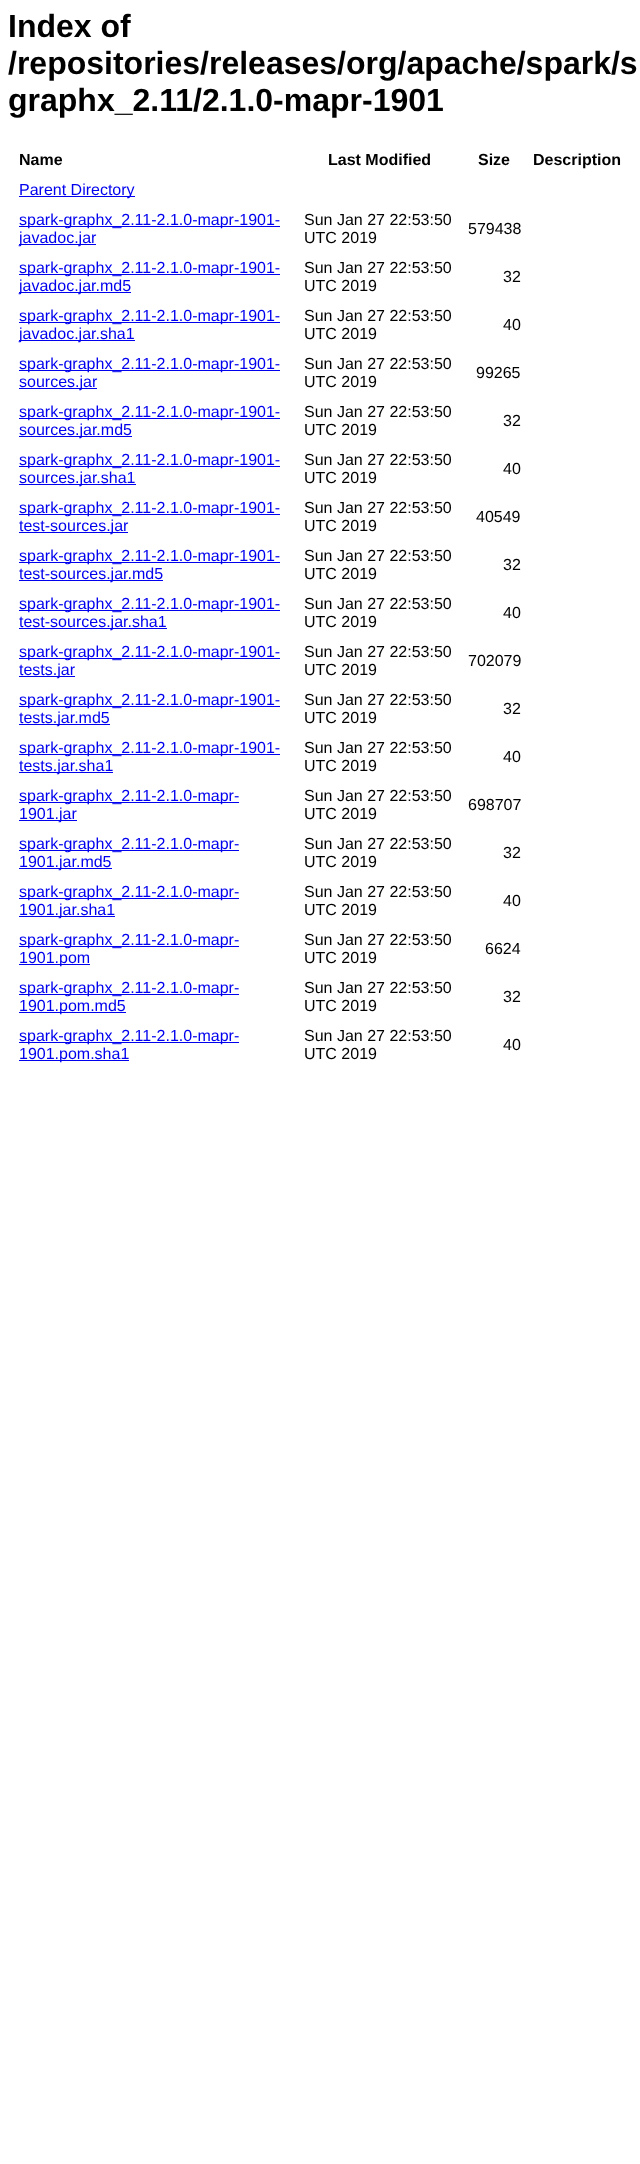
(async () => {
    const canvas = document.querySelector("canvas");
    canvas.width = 640;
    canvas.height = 2164;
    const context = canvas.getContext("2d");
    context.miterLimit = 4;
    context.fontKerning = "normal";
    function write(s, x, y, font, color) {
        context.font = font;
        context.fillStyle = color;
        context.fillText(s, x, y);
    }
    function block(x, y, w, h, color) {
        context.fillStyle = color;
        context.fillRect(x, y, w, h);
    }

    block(0, 0, 640, 2164, "rgb(255, 255, 255)");
    write("Index of", 8, 37, "bold 32px Liberation Sans", "rgb(0, 0, 0)");
    write("/repositories/releases/org/apache/spark/s", 8, 74, "bold 32px Liberation Sans", "rgb(0, 0, 0)");
    write("graphx_2.11/2.1.0-mapr-1901", 8, 111, "bold 32px Liberation Sans", "rgb(0, 0, 0)");
    write("Name", 19, 165, "bold 16px Liberation Sans", "rgb(0, 0, 0)");
    write("Last Modified", 328, 165, "bold 16px Liberation Sans", "rgb(0, 0, 0)");
    write("Size", 478, 165, "bold 16px Liberation Sans", "rgb(0, 0, 0)");
    write("Description", 533, 165, "bold 16px Liberation Sans", "rgb(0, 0, 0)");
    block(19, 196, 116, 1, "rgb(0, 0, 238)");
    write("Parent Directory", 19, 195, "16px Liberation Sans", "rgb(0, 0, 238)");
    block(19, 226, 261, 1, "rgb(0, 0, 238)");
    write("spark-graphx_2.11-2.1.0-mapr-1901-", 19, 225, "16px Liberation Sans", "rgb(0, 0, 238)");
    block(19, 244, 77, 1, "rgb(0, 0, 238)");
    write("javadoc.jar", 19, 243, "16px Liberation Sans", "rgb(0, 0, 238)");
    write("Sun Jan 27 22:53:50", 304, 225, "16px Liberation Sans", "rgb(0, 0, 0)");
    write("UTC 2019", 304, 243, "16px Liberation Sans", "rgb(0, 0, 0)");
    write("579438", 468, 234, "16px Liberation Sans", "rgb(0, 0, 0)");
    block(19, 274, 261, 1, "rgb(0, 0, 238)");
    write("spark-graphx_2.11-2.1.0-mapr-1901-", 19, 273, "16px Liberation Sans", "rgb(0, 0, 238)");
    block(19, 292, 112, 1, "rgb(0, 0, 238)");
    write("javadoc.jar.md5", 19, 291, "16px Liberation Sans", "rgb(0, 0, 238)");
    write("Sun Jan 27 22:53:50", 304, 273, "16px Liberation Sans", "rgb(0, 0, 0)");
    write("UTC 2019", 304, 291, "16px Liberation Sans", "rgb(0, 0, 0)");
    write("32", 503, 282, "16px Liberation Sans", "rgb(0, 0, 0)");
    block(19, 322, 261, 1, "rgb(0, 0, 238)");
    write("spark-graphx_2.11-2.1.0-mapr-1901-", 19, 321, "16px Liberation Sans", "rgb(0, 0, 238)");
    block(19, 340, 116, 1, "rgb(0, 0, 238)");
    write("javadoc.jar.sha1", 19, 339, "16px Liberation Sans", "rgb(0, 0, 238)");
    write("Sun Jan 27 22:53:50", 304, 321, "16px Liberation Sans", "rgb(0, 0, 0)");
    write("UTC 2019", 304, 339, "16px Liberation Sans", "rgb(0, 0, 0)");
    write("40", 503, 330, "16px Liberation Sans", "rgb(0, 0, 0)");
    block(19, 370, 261, 1, "rgb(0, 0, 238)");
    write("spark-graphx_2.11-2.1.0-mapr-1901-", 19, 369, "16px Liberation Sans", "rgb(0, 0, 238)");
    block(19, 388, 78, 1, "rgb(0, 0, 238)");
    write("sources.jar", 19, 387, "16px Liberation Sans", "rgb(0, 0, 238)");
    write("Sun Jan 27 22:53:50", 304, 369, "16px Liberation Sans", "rgb(0, 0, 0)");
    write("UTC 2019", 304, 387, "16px Liberation Sans", "rgb(0, 0, 0)");
    write("99265", 476, 378, "16px Liberation Sans", "rgb(0, 0, 0)");
    block(19, 418, 261, 1, "rgb(0, 0, 238)");
    write("spark-graphx_2.11-2.1.0-mapr-1901-", 19, 417, "16px Liberation Sans", "rgb(0, 0, 238)");
    block(19, 436, 113, 1, "rgb(0, 0, 238)");
    write("sources.jar.md5", 19, 435, "16px Liberation Sans", "rgb(0, 0, 238)");
    write("Sun Jan 27 22:53:50", 304, 417, "16px Liberation Sans", "rgb(0, 0, 0)");
    write("UTC 2019", 304, 435, "16px Liberation Sans", "rgb(0, 0, 0)");
    write("32", 503, 426, "16px Liberation Sans", "rgb(0, 0, 0)");
    block(19, 466, 261, 1, "rgb(0, 0, 238)");
    write("spark-graphx_2.11-2.1.0-mapr-1901-", 19, 465, "16px Liberation Sans", "rgb(0, 0, 238)");
    block(19, 484, 117, 1, "rgb(0, 0, 238)");
    write("sources.jar.sha1", 19, 483, "16px Liberation Sans", "rgb(0, 0, 238)");
    write("Sun Jan 27 22:53:50", 304, 465, "16px Liberation Sans", "rgb(0, 0, 0)");
    write("UTC 2019", 304, 483, "16px Liberation Sans", "rgb(0, 0, 0)");
    write("40", 503, 474, "16px Liberation Sans", "rgb(0, 0, 0)");
    block(19, 514, 261, 1, "rgb(0, 0, 238)");
    write("spark-graphx_2.11-2.1.0-mapr-1901-", 19, 513, "16px Liberation Sans", "rgb(0, 0, 238)");
    block(19, 532, 109, 1, "rgb(0, 0, 238)");
    write("test-sources.jar", 19, 531, "16px Liberation Sans", "rgb(0, 0, 238)");
    write("Sun Jan 27 22:53:50", 304, 513, "16px Liberation Sans", "rgb(0, 0, 0)");
    write("UTC 2019", 304, 531, "16px Liberation Sans", "rgb(0, 0, 0)");
    write("40549", 476, 522, "16px Liberation Sans", "rgb(0, 0, 0)");
    block(19, 562, 261, 1, "rgb(0, 0, 238)");
    write("spark-graphx_2.11-2.1.0-mapr-1901-", 19, 561, "16px Liberation Sans", "rgb(0, 0, 238)");
    block(19, 580, 144, 1, "rgb(0, 0, 238)");
    write("test-sources.jar.md5", 19, 579, "16px Liberation Sans", "rgb(0, 0, 238)");
    write("Sun Jan 27 22:53:50", 304, 561, "16px Liberation Sans", "rgb(0, 0, 0)");
    write("UTC 2019", 304, 579, "16px Liberation Sans", "rgb(0, 0, 0)");
    write("32", 503, 570, "16px Liberation Sans", "rgb(0, 0, 0)");
    block(19, 610, 261, 1, "rgb(0, 0, 238)");
    write("spark-graphx_2.11-2.1.0-mapr-1901-", 19, 609, "16px Liberation Sans", "rgb(0, 0, 238)");
    block(19, 628, 148, 1, "rgb(0, 0, 238)");
    write("test-sources.jar.sha1", 19, 627, "16px Liberation Sans", "rgb(0, 0, 238)");
    write("Sun Jan 27 22:53:50", 304, 609, "16px Liberation Sans", "rgb(0, 0, 0)");
    write("UTC 2019", 304, 627, "16px Liberation Sans", "rgb(0, 0, 0)");
    write("40", 503, 618, "16px Liberation Sans", "rgb(0, 0, 0)");
    block(19, 658, 261, 1, "rgb(0, 0, 238)");
    write("spark-graphx_2.11-2.1.0-mapr-1901-", 19, 657, "16px Liberation Sans", "rgb(0, 0, 238)");
    block(19, 676, 56, 1, "rgb(0, 0, 238)");
    write("tests.jar", 19, 675, "16px Liberation Sans", "rgb(0, 0, 238)");
    write("Sun Jan 27 22:53:50", 304, 657, "16px Liberation Sans", "rgb(0, 0, 0)");
    write("UTC 2019", 304, 675, "16px Liberation Sans", "rgb(0, 0, 0)");
    write("702079", 468, 666, "16px Liberation Sans", "rgb(0, 0, 0)");
    block(19, 706, 261, 1, "rgb(0, 0, 238)");
    write("spark-graphx_2.11-2.1.0-mapr-1901-", 19, 705, "16px Liberation Sans", "rgb(0, 0, 238)");
    block(19, 724, 91, 1, "rgb(0, 0, 238)");
    write("tests.jar.md5", 19, 723, "16px Liberation Sans", "rgb(0, 0, 238)");
    write("Sun Jan 27 22:53:50", 304, 705, "16px Liberation Sans", "rgb(0, 0, 0)");
    write("UTC 2019", 304, 723, "16px Liberation Sans", "rgb(0, 0, 0)");
    write("32", 503, 714, "16px Liberation Sans", "rgb(0, 0, 0)");
    block(19, 754, 261, 1, "rgb(0, 0, 238)");
    write("spark-graphx_2.11-2.1.0-mapr-1901-", 19, 753, "16px Liberation Sans", "rgb(0, 0, 238)");
    block(19, 772, 94, 1, "rgb(0, 0, 238)");
    write("tests.jar.sha1", 19, 771, "16px Liberation Sans", "rgb(0, 0, 238)");
    write("Sun Jan 27 22:53:50", 304, 753, "16px Liberation Sans", "rgb(0, 0, 0)");
    write("UTC 2019", 304, 771, "16px Liberation Sans", "rgb(0, 0, 0)");
    write("40", 503, 762, "16px Liberation Sans", "rgb(0, 0, 0)");
    block(19, 802, 220, 1, "rgb(0, 0, 238)");
    write("spark-graphx_2.11-2.1.0-mapr-", 19, 801, "16px Liberation Sans", "rgb(0, 0, 238)");
    block(19, 820, 58, 1, "rgb(0, 0, 238)");
    write("1901.jar", 19, 819, "16px Liberation Sans", "rgb(0, 0, 238)");
    write("Sun Jan 27 22:53:50", 304, 801, "16px Liberation Sans", "rgb(0, 0, 0)");
    write("UTC 2019", 304, 819, "16px Liberation Sans", "rgb(0, 0, 0)");
    write("698707", 468, 810, "16px Liberation Sans", "rgb(0, 0, 0)");
    block(19, 850, 220, 1, "rgb(0, 0, 238)");
    write("spark-graphx_2.11-2.1.0-mapr-", 19, 849, "16px Liberation Sans", "rgb(0, 0, 238)");
    block(19, 868, 93, 1, "rgb(0, 0, 238)");
    write("1901.jar.md5", 19, 867, "16px Liberation Sans", "rgb(0, 0, 238)");
    write("Sun Jan 27 22:53:50", 304, 849, "16px Liberation Sans", "rgb(0, 0, 0)");
    write("UTC 2019", 304, 867, "16px Liberation Sans", "rgb(0, 0, 0)");
    write("32", 503, 858, "16px Liberation Sans", "rgb(0, 0, 0)");
    block(19, 898, 220, 1, "rgb(0, 0, 238)");
    write("spark-graphx_2.11-2.1.0-mapr-", 19, 897, "16px Liberation Sans", "rgb(0, 0, 238)");
    block(19, 916, 96, 1, "rgb(0, 0, 238)");
    write("1901.jar.sha1", 19, 915, "16px Liberation Sans", "rgb(0, 0, 238)");
    write("Sun Jan 27 22:53:50", 304, 897, "16px Liberation Sans", "rgb(0, 0, 0)");
    write("UTC 2019", 304, 915, "16px Liberation Sans", "rgb(0, 0, 0)");
    write("40", 503, 906, "16px Liberation Sans", "rgb(0, 0, 0)");
    block(19, 946, 220, 1, "rgb(0, 0, 238)");
    write("spark-graphx_2.11-2.1.0-mapr-", 19, 945, "16px Liberation Sans", "rgb(0, 0, 238)");
    block(19, 964, 71, 1, "rgb(0, 0, 238)");
    write("1901.pom", 19, 963, "16px Liberation Sans", "rgb(0, 0, 238)");
    write("Sun Jan 27 22:53:50", 304, 945, "16px Liberation Sans", "rgb(0, 0, 0)");
    write("UTC 2019", 304, 963, "16px Liberation Sans", "rgb(0, 0, 0)");
    write("6624", 485, 954, "16px Liberation Sans", "rgb(0, 0, 0)");
    block(19, 994, 220, 1, "rgb(0, 0, 238)");
    write("spark-graphx_2.11-2.1.0-mapr-", 19, 993, "16px Liberation Sans", "rgb(0, 0, 238)");
    block(19, 1012, 107, 1, "rgb(0, 0, 238)");
    write("1901.pom.md5", 19, 1011, "16px Liberation Sans", "rgb(0, 0, 238)");
    write("Sun Jan 27 22:53:50", 304, 993, "16px Liberation Sans", "rgb(0, 0, 0)");
    write("UTC 2019", 304, 1011, "16px Liberation Sans", "rgb(0, 0, 0)");
    write("32", 503, 1002, "16px Liberation Sans", "rgb(0, 0, 0)");
    block(19, 1042, 220, 1, "rgb(0, 0, 238)");
    write("spark-graphx_2.11-2.1.0-mapr-", 19, 1041, "16px Liberation Sans", "rgb(0, 0, 238)");
    block(19, 1060, 110, 1, "rgb(0, 0, 238)");
    write("1901.pom.sha1", 19, 1059, "16px Liberation Sans", "rgb(0, 0, 238)");
    write("Sun Jan 27 22:53:50", 304, 1041, "16px Liberation Sans", "rgb(0, 0, 0)");
    write("UTC 2019", 304, 1059, "16px Liberation Sans", "rgb(0, 0, 0)");
    write("40", 503, 1050, "16px Liberation Sans", "rgb(0, 0, 0)");
})();
